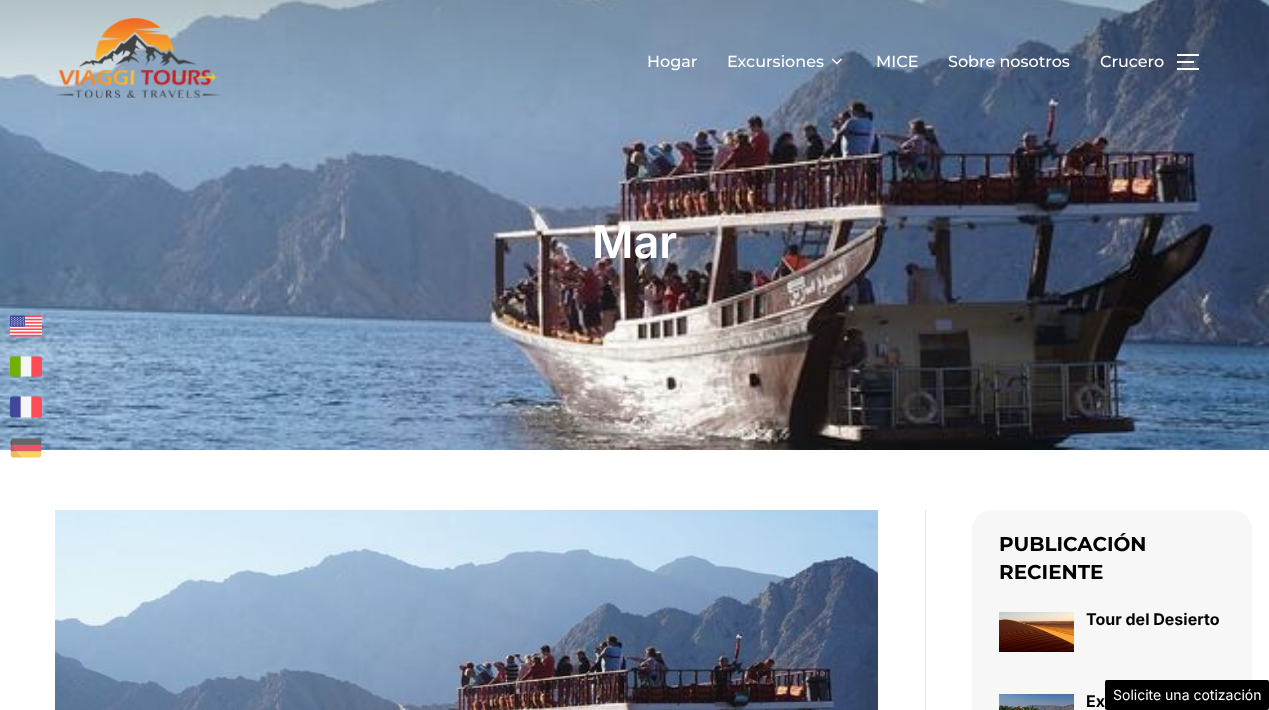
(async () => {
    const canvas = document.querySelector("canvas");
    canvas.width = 1269;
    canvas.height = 710;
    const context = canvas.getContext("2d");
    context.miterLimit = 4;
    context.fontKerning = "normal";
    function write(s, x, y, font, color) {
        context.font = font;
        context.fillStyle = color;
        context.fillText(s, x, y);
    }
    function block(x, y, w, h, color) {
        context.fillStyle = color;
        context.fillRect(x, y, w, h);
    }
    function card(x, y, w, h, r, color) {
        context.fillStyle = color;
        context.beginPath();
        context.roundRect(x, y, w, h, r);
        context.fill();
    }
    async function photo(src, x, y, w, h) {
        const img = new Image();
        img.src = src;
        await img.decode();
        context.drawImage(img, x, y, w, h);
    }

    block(0, 0, 1269, 710, "rgb(255, 255, 255)");
    await photo("media/7.png", 0, 0, 1269, 450);
    await photo("media/1.png", 10, 315, 32, 22);
    await photo("media/2.png", 10, 355, 32, 23);
    await photo("media/3.png", 10, 396, 32, 22);
    await photo("media/4.png", 10, 438, 32, 20);
    await photo("media/5.png", 55, 18, 166, 80);
    write("Hogar", 647, 67, "500 16px Montserrat", "rgb(255, 255, 255)");
    write("Excursiones", 727, 67, "500 16px Montserrat", "rgb(255, 255, 255)");
    await photo("media/6.png", 831, 58, 11, 7);
    write("MICE", 876, 67, "500 16px Montserrat", "rgb(255, 255, 255)");
    write("Sobre nosotros", 948, 67, "500 16px Montserrat", "rgb(255, 255, 255)");
    write("Crucero", 1100, 67, "500 16px Montserrat", "rgb(255, 255, 255)");
    block(1177, 54, 22, 2, "rgb(255, 255, 255)");
    block(1177, 61, 17, 2, "rgb(255, 255, 255)");
    block(1177, 68, 22, 2, "rgb(255, 255, 255)");
    write("Mar", 592, 258, "600 45px Inter", "rgb(255, 255, 255)");
    await photo("media/8.png", 55, 510, 823, 200);
    block(925, 510, 1, 200, "rgb(230, 230, 230)");
    card(972, 510, 280, 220, 20, "rgb(247, 247, 247)");
    write("PUBLICACIÓN", 999, 551, "bold 20px Montserrat", "rgb(0, 0, 0)");
    write("RECIENTE", 999, 579, "bold 20px Montserrat", "rgb(0, 0, 0)");
    await photo("media/9.png", 999, 612, 75, 40);
    write("Tour del Desierto", 1086, 625, "bold 16px Inter", "rgb(0, 0, 0)");
    await photo("media/10.png", 999, 694, 75, 16);
    write("Ex", 1086, 707, "bold 16px Inter", "rgb(0, 0, 0)");
    card(1105, 680, 164, 30, 2, "rgb(0, 0, 0)");
    write("Solicite una cotización", 1113, 700, "14px Inter", "rgb(255, 255, 255)");
})();
